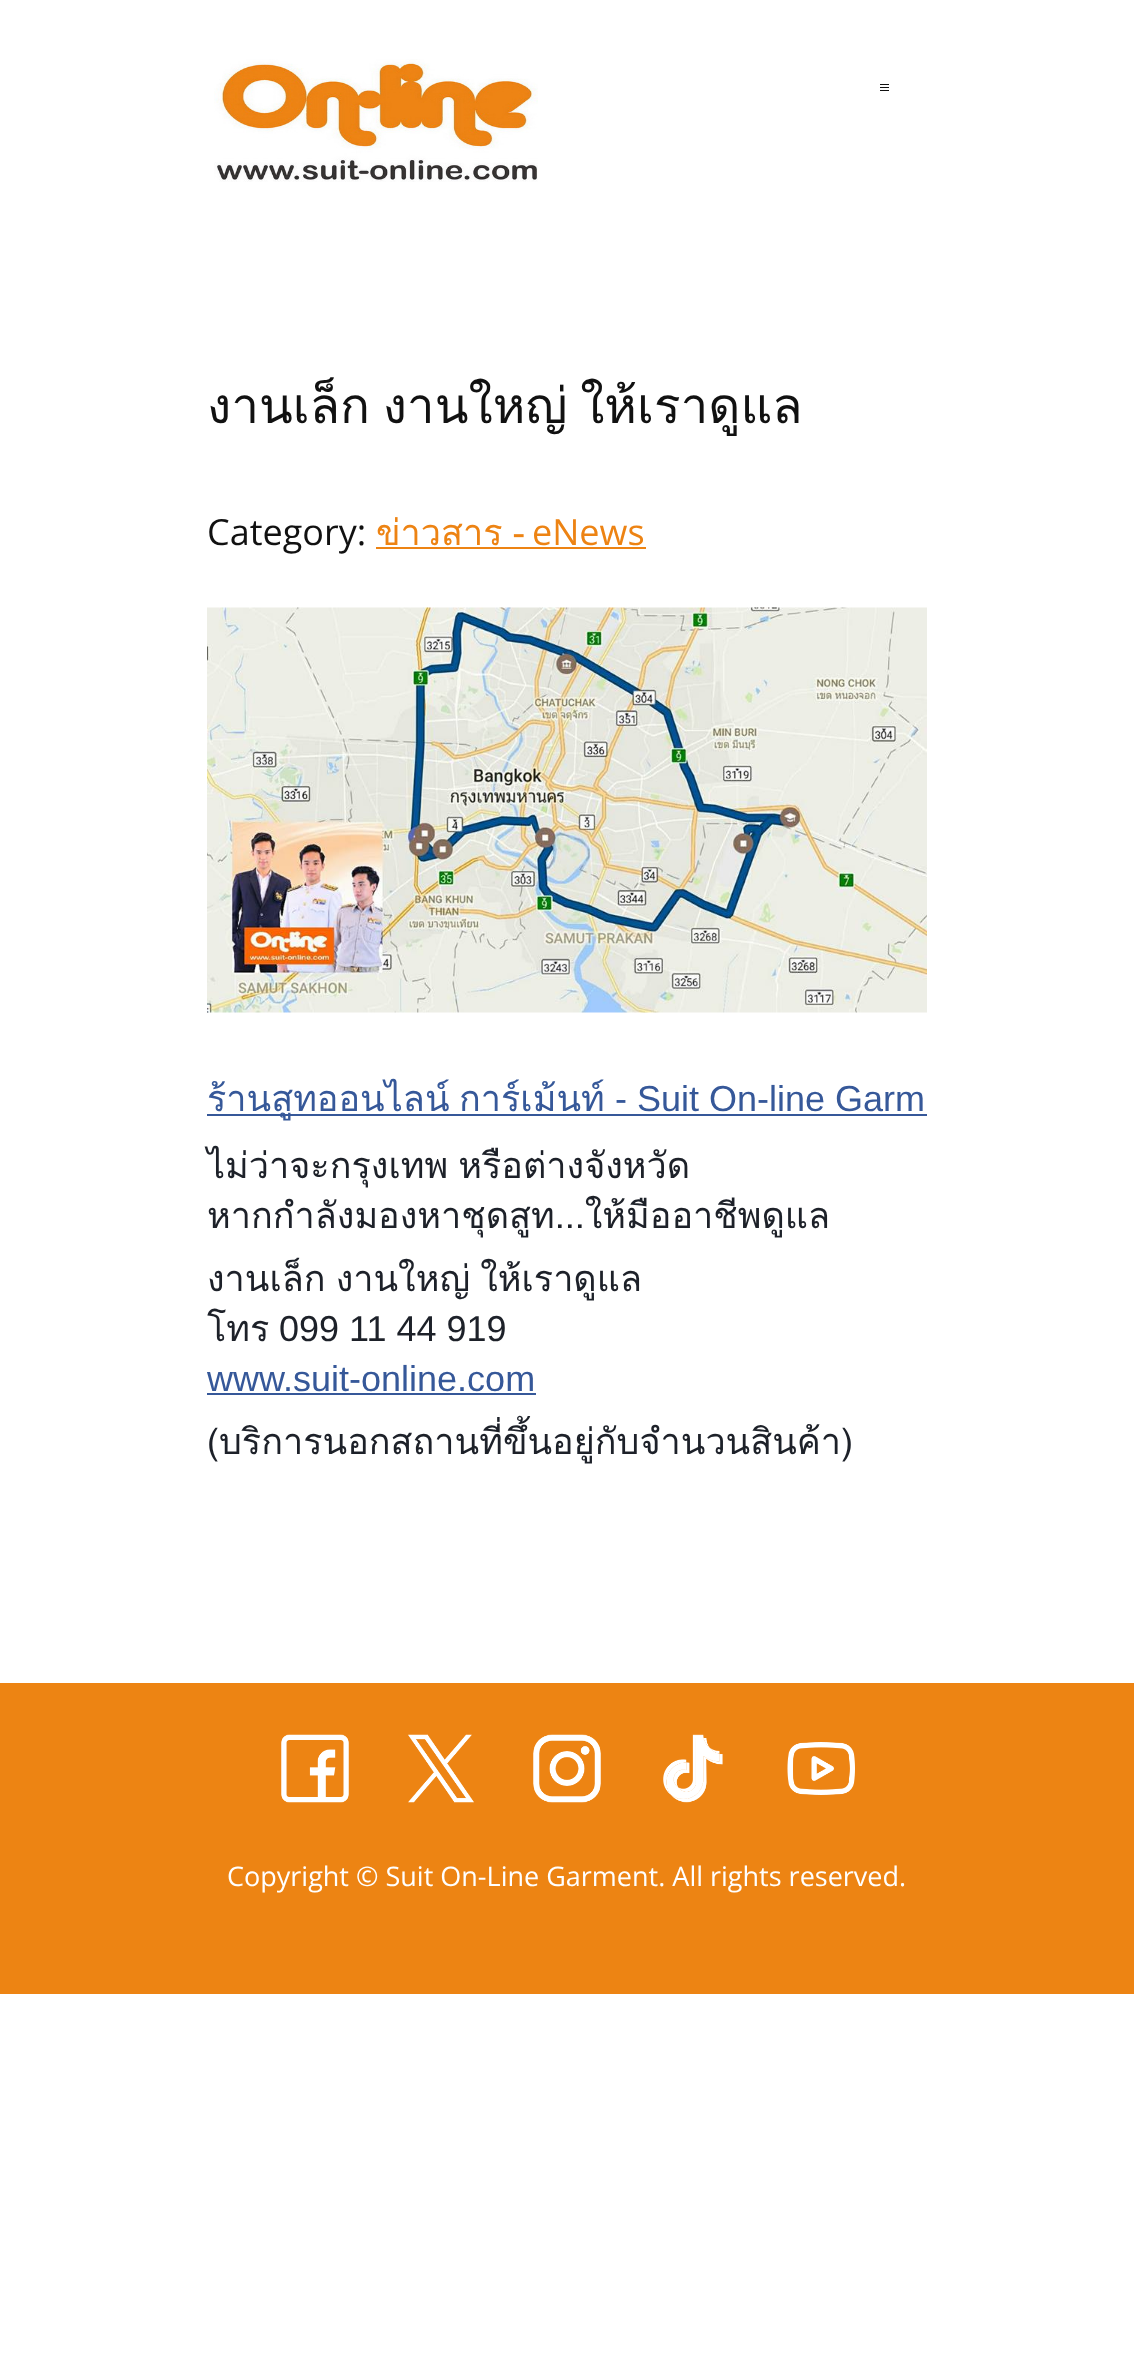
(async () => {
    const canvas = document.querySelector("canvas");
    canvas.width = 1134;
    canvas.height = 2364;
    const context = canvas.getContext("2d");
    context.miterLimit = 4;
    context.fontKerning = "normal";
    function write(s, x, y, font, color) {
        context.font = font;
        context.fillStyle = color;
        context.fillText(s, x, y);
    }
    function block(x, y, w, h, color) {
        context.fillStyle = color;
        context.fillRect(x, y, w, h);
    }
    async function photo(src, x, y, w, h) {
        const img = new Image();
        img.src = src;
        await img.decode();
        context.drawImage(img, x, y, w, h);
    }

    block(0, 0, 1134, 2364, "rgb(255, 255, 255)");
    await photo("media/1.png", 214, 59, 324, 123);
    block(880, 84, 9, 1, "rgb(17, 17, 17)");
    block(880, 87, 9, 1, "rgb(17, 17, 17)");
    block(880, 90, 9, 1, "rgb(17, 17, 17)");
    context.wordSpacing = "-4px";
    write("งานเล็ก งานใหญ่ ให้เราดูแล", 207, 423, "49.5px Loma", "rgb(17, 17, 17)");
    context.wordSpacing = "0px";
    write("Category:", 207, 545, "36px Open Sans", "rgb(17, 17, 17)");
    context.wordSpacing = "-2px";
    write("ข่าวสาร -", 376, 545, "36px Loma", "rgb(237, 131, 19)");
    context.wordSpacing = "0px";
    write("eNews", 532, 545, "36px Open Sans", "rgb(237, 131, 19)");
    block(376, 547, 270, 2, "rgb(237, 131, 19)");
    await photo("media/2.png", 207, 607, 720, 406);
    block(207, 1114, 720, 2, "rgb(54, 88, 153)");
    context.save();
    context.beginPath();
    context.rect(207, 1073, 720, 70);
    context.clip();
    write("ร้านสูทออนไลน์", 207, 1111, "36px Loma", "rgb(54, 88, 153)");
    context.restore();
    write("การ์เม้นท์", 459, 1111, "36px Loma", "rgb(54, 88, 153)");
    write("- Suit On-line Garm", 615, 1111, "36px Liberation Sans", "rgb(54, 88, 153)");
    context.wordSpacing = "-2px";
    write("ไม่ว่าจะกรุงเทพ หรือต่างจังหวัด", 207, 1178, "36px Loma", "rgb(29, 33, 41)");
    context.wordSpacing = "0px";
    write("หากกำลังมองหาชุดสูท...ให้มืออาชีพดูแล", 207, 1228, "36px Loma", "rgb(29, 33, 41)");
    context.wordSpacing = "-2px";
    write("งานเล็ก งานใหญ่ ให้เราดูแล", 207, 1291, "36px Loma", "rgb(29, 33, 41)");
    context.wordSpacing = "0px";
    write("โทร", 207, 1341, "36px Loma", "rgb(29, 33, 41)");
    write("099 11 44 919", 279, 1341, "36px Liberation Sans", "rgb(29, 33, 41)");
    write("www.suit-online.com", 207, 1391, "36px Liberation Sans", "rgb(54, 88, 153)");
    block(207, 1393, 329, 2, "rgb(54, 88, 153)");
    write("(บริการนอกสถานที่ขึ้นอยู่กับจำนวนสินค้า)", 207, 1454, "36px Loma", "rgb(29, 33, 41)");
    block(0, 1683, 1134, 311, "rgb(237, 132, 19)");
    await photo("media/3.png", 281, 1734, 68, 69);
    await photo("media/4.png", 408, 1734, 66, 69);
    await photo("media/5.png", 533, 1734, 68, 69);
    await photo("media/6.png", 663, 1734, 60, 69);
    await photo("media/7.png", 787, 1742, 68, 53);
    write("Copyright © Suit On-Line Garment. All rights reserved.", 227, 1886, "27px Open Sans", "rgb(255, 255, 255)");
})();
